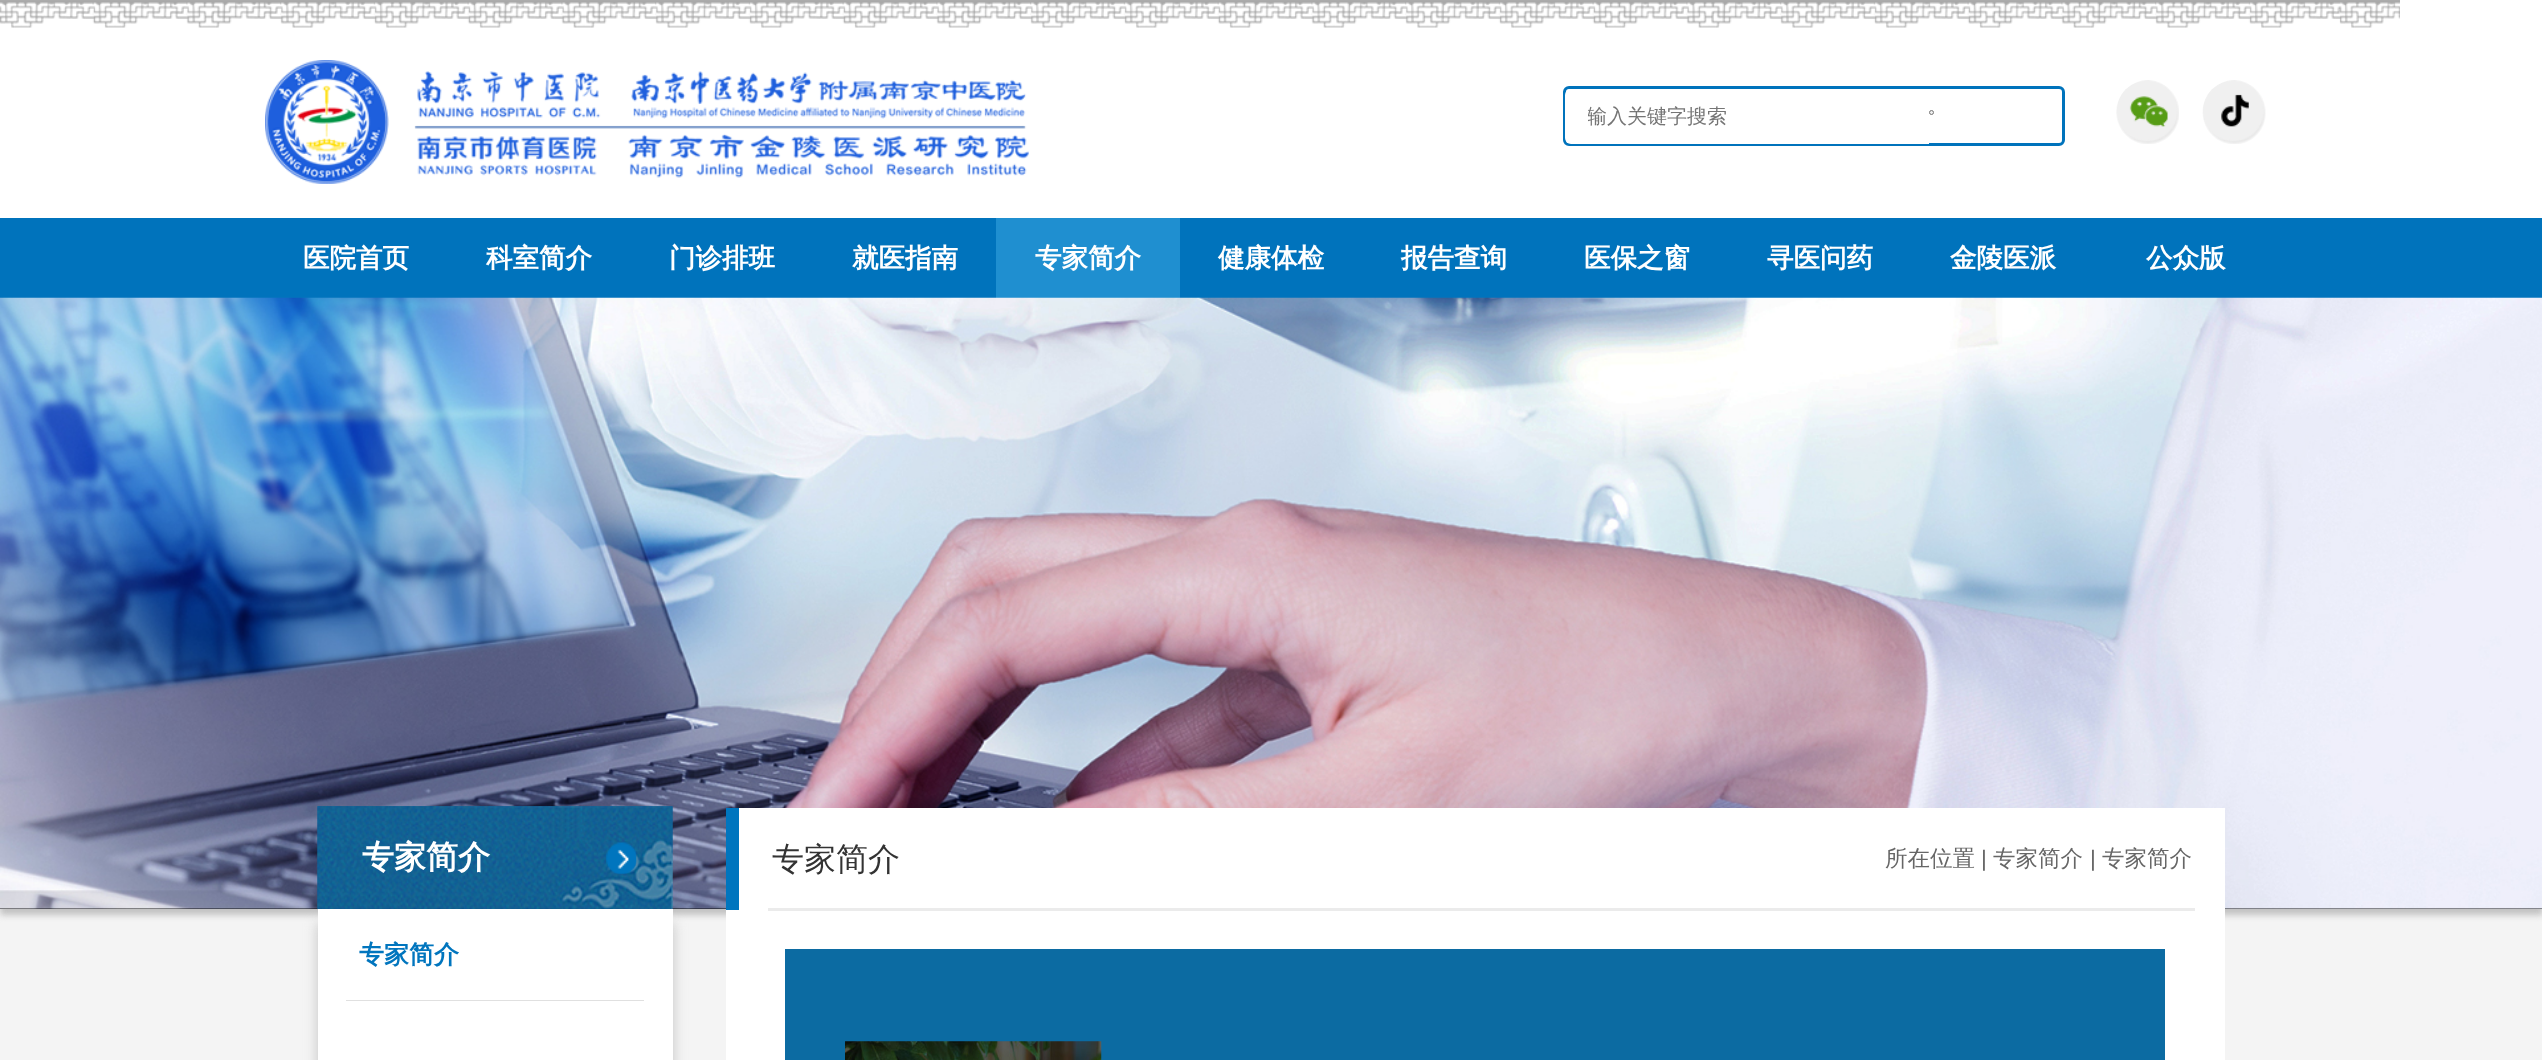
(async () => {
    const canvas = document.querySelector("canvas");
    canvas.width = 2542;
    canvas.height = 1060;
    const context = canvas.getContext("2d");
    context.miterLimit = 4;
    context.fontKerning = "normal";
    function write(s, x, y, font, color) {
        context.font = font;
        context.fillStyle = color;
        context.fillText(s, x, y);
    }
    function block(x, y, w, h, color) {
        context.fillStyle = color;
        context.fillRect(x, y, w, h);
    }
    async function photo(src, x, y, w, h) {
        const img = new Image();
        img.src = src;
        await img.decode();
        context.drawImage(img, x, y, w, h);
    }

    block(0, 0, 2542, 1060, "rgb(255, 255, 255)");
    await photo("media/1.png", 0, 0, 2400, 28);
    await photo("media/2.png", 265, 60, 764, 124);
    context.beginPath();
    context.roundRect(1564.5, 87.5, 499, 57, 4.5);
    context.strokeStyle = "rgb(0, 115, 188)";
    context.lineWidth = 3;
    context.stroke();
    context.beginPath();
    context.roundRect(1565, 89, 364, 55, [6, 0, 0, 6]);
    context.fill();
    context.save();
    context.beginPath();
    context.rect(1588, 104, 341, 26);
    context.clip();
    write("输入关键字搜索", 1587, 123, "500 20px WenQuanYi Zen Hei", "rgb(117, 117, 117)");
    context.restore();
    context.fillStyle = "rgb(239, 239, 239)";
    context.beginPath();
    context.arc(1931.5, 112.5, 2, 0, Math.PI * 2);
    context.fill();
    context.strokeStyle = "rgb(118, 118, 118)";
    context.lineWidth = 1;
    context.stroke();
    await photo("media/3.png", 2116, 80, 63, 64);
    await photo("media/4.png", 2202, 80, 64, 64);
    block(0, 218, 2542, 80, "rgb(0, 115, 188)");
    write("医院首页", 303, 267, "bold 26.5px WenQuanYi Zen Hei", "rgb(255, 255, 255)");
    write("科室简介", 486, 267, "bold 26.5px WenQuanYi Zen Hei", "rgb(255, 255, 255)");
    write("门诊排班", 669, 267, "bold 26.5px WenQuanYi Zen Hei", "rgb(255, 255, 255)");
    write("就医指南", 852, 267, "bold 26.5px WenQuanYi Zen Hei", "rgb(255, 255, 255)");
    block(996, 218, 184, 80, "rgb(31, 143, 208)");
    write("专家简介", 1035, 267, "bold 26.5px WenQuanYi Zen Hei", "rgb(255, 255, 255)");
    write("健康体检", 1218, 267, "bold 26.5px WenQuanYi Zen Hei", "rgb(255, 255, 255)");
    write("报告查询", 1401, 267, "bold 26.5px WenQuanYi Zen Hei", "rgb(255, 255, 255)");
    write("医保之窗", 1584, 267, "bold 26.5px WenQuanYi Zen Hei", "rgb(255, 255, 255)");
    write("寻医问药", 1767, 267, "bold 26.5px WenQuanYi Zen Hei", "rgb(255, 255, 255)");
    write("金陵医派", 1950, 267, "bold 26.5px WenQuanYi Zen Hei", "rgb(255, 255, 255)");
    write("公众版", 2146, 267, "bold 26.5px WenQuanYi Zen Hei", "rgb(255, 255, 255)");
    block(0, 909, 2542, 151, "rgb(244, 244, 244)");
    context.fillStyle = "rgb(193, 193, 193)";
    context.filter = "blur(3px)";
    context.beginPath();
    context.rect(0, 304, 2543, 611);
    context.fill();
    context.filter = "none";
    block(0, 908, 2542, 1, "rgb(0, 0, 0)");
    await photo("media/5.png", 0, 297, 2542, 612);
    context.fillStyle = "rgb(195, 195, 195)";
    context.filter = "blur(6.5px)";
    context.beginPath();
    context.rect(318, 923, 355, 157);
    context.fill();
    context.filter = "none";
    block(318, 909, 355, 151, "rgb(255, 255, 255)");
    await photo("media/6.png", 317, 806, 356, 103);
    await photo("media/7.png", 317, 806, 356, 103);
    write("专家简介", 362, 868, "bold 32px WenQuanYi Zen Hei", "rgb(255, 255, 255)");
    await photo("media/8.png", 606, 842, 31, 32);
    block(346, 1000, 298, 1, "rgb(224, 224, 224)");
    write("专家简介", 359, 963, "bold 25px WenQuanYi Zen Hei", "rgb(0, 117, 190)");
    block(726, 910, 1499, 150, "rgb(255, 255, 255)");
    block(739, 808, 1486, 102, "rgb(255, 255, 255)");
    block(726, 808, 13, 102, "rgb(0, 117, 190)");
    write("专家简介", 772, 870, "500 32px WenQuanYi Zen Hei", "rgb(51, 51, 51)");
    write("所在位置", 1885, 866, "500 22.5px WenQuanYi Zen Hei", "rgb(102, 102, 102)");
    write("|", 1981, 866, "22.5px Liberation Sans", "rgb(102, 102, 102)");
    write("专家简介", 1993, 866, "500 22.5px WenQuanYi Zen Hei", "rgb(102, 102, 102)");
    write("|", 2090, 866, "22.5px Liberation Sans", "rgb(102, 102, 102)");
    write("专家简介", 2102, 866, "500 22.5px WenQuanYi Zen Hei", "rgb(102, 102, 102)");
    block(768, 908, 1427, 3, "rgb(235, 235, 235)");
    block(785, 949, 1380, 111, "rgb(12, 107, 162)");
    await photo("media/9.png", 845, 1041, 257, 19);
})();
